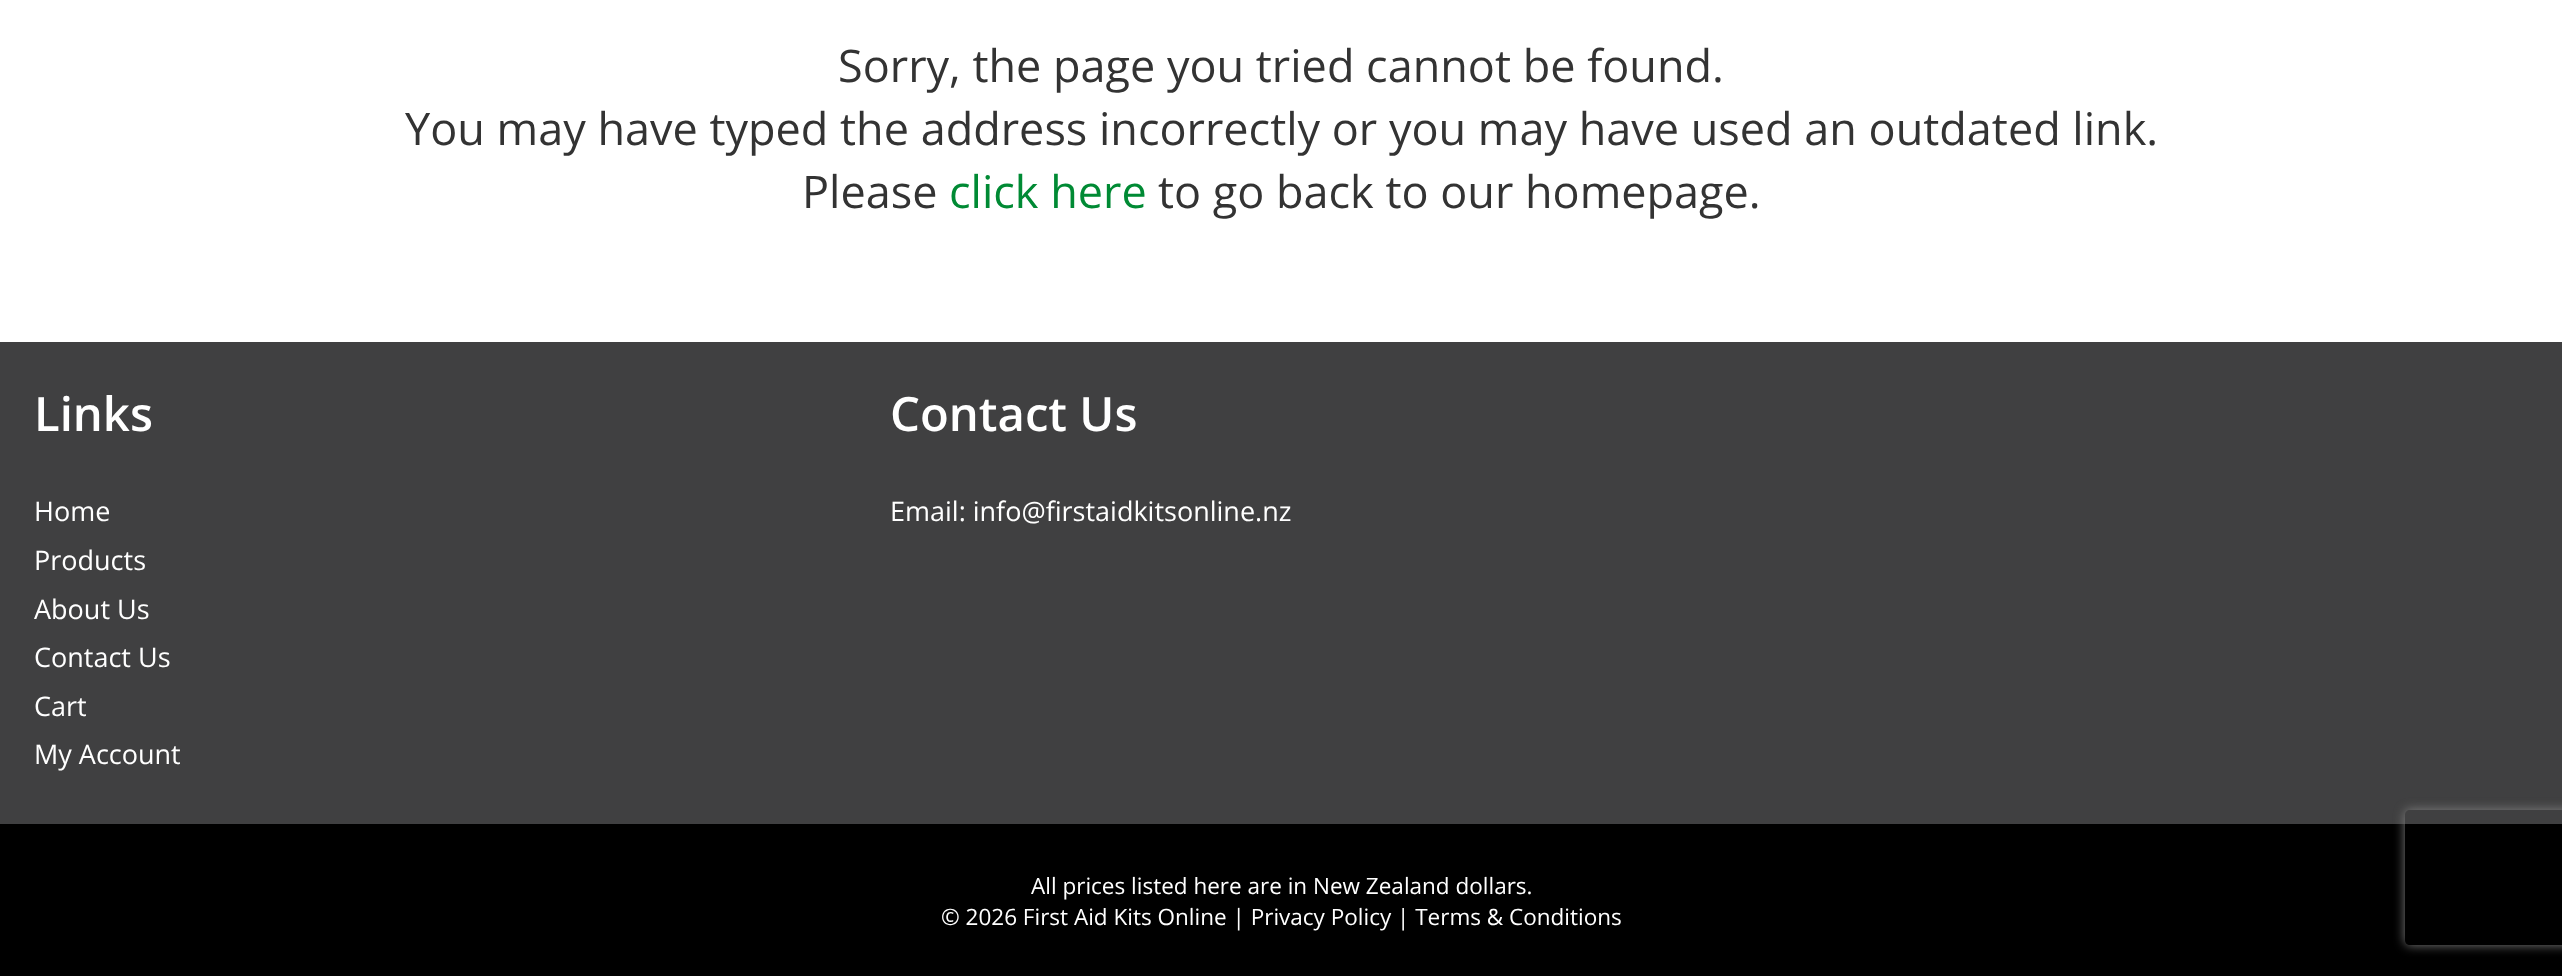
(async () => {
    const canvas = document.querySelector("canvas");
    canvas.width = 2562;
    canvas.height = 976;
    const context = canvas.getContext("2d");
    context.miterLimit = 4;
    context.fontKerning = "normal";
    function write(s, x, y, font, color) {
        context.font = font;
        context.fillStyle = color;
        context.fillText(s, x, y);
    }
    function block(x, y, w, h, color) {
        context.fillStyle = color;
        context.fillRect(x, y, w, h);
    }

    block(0, 0, 2562, 976, "rgb(255, 255, 255)");
    write("Sorry, the page you tried cannot be found.", 838, 82, "45px Open Sans", "rgb(51, 51, 51)");
    write("You may have typed the address incorrectly or you may have used an outdated link.", 405, 145, "45px Open Sans", "rgb(51, 51, 51)");
    write("Please", 802, 208, "45px Open Sans", "rgb(51, 51, 51)");
    write("click here", 949, 208, "45px Open Sans", "rgb(0, 138, 52)");
    write("to go back to our homepage.", 1158, 208, "45px Open Sans", "rgb(51, 51, 51)");
    block(0, 342, 2562, 482, "rgb(64, 64, 65)");
    write("Links", 34, 431, "600 47.25px Open Sans", "rgb(255, 255, 255)");
    write("Home", 34, 521, "27px Open Sans", "rgb(255, 255, 255)");
    write("Products", 34, 570, "27px Open Sans", "rgb(255, 255, 255)");
    write("About Us", 34, 619, "27px Open Sans", "rgb(255, 255, 255)");
    write("Contact Us", 34, 667, "27px Open Sans", "rgb(255, 255, 255)");
    write("Cart", 34, 716, "27px Open Sans", "rgb(255, 255, 255)");
    write("My Account", 34, 764, "27px Open Sans", "rgb(255, 255, 255)");
    write("Contact Us", 890, 431, "600 47.25px Open Sans", "rgb(255, 255, 255)");
    write("Email: info@firstaidkitsonline.nz", 890, 521, "27px Open Sans", "rgb(255, 255, 255)");
    block(0, 824, 2562, 152, "rgb(0, 0, 0)");
    write("All prices listed here are in New Zealand dollars.", 1031, 894, "22.5px Open Sans", "rgb(255, 255, 255)");
    write("© 2026 First Aid Kits Online | Privacy Policy | Terms & Conditions", 941, 925, "22.5px Open Sans", "rgb(255, 255, 255)");
    context.save();
    context.beginPath();
    context.moveTo(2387, 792);
    context.lineTo(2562, 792);
    context.lineTo(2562, 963);
    context.lineTo(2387, 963);
    context.closePath();
    context.moveTo(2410, 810);
    context.lineTo(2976, 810);
    context.bezierCurveTo(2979, 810, 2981, 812, 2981, 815);
    context.lineTo(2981, 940);
    context.bezierCurveTo(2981, 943, 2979, 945, 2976, 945);
    context.lineTo(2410, 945);
    context.bezierCurveTo(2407, 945, 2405, 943, 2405, 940);
    context.lineTo(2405, 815);
    context.bezierCurveTo(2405, 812, 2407, 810, 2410, 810);
    context.closePath();
    context.clip("evenodd");
    context.fillStyle = "rgb(128, 128, 128)";
    context.filter = "blur(5.5px)";
    context.beginPath();
    context.roundRect(2405, 810, 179, 135, 5);
    context.fill();
    context.filter = "none";
    context.restore();
})();
